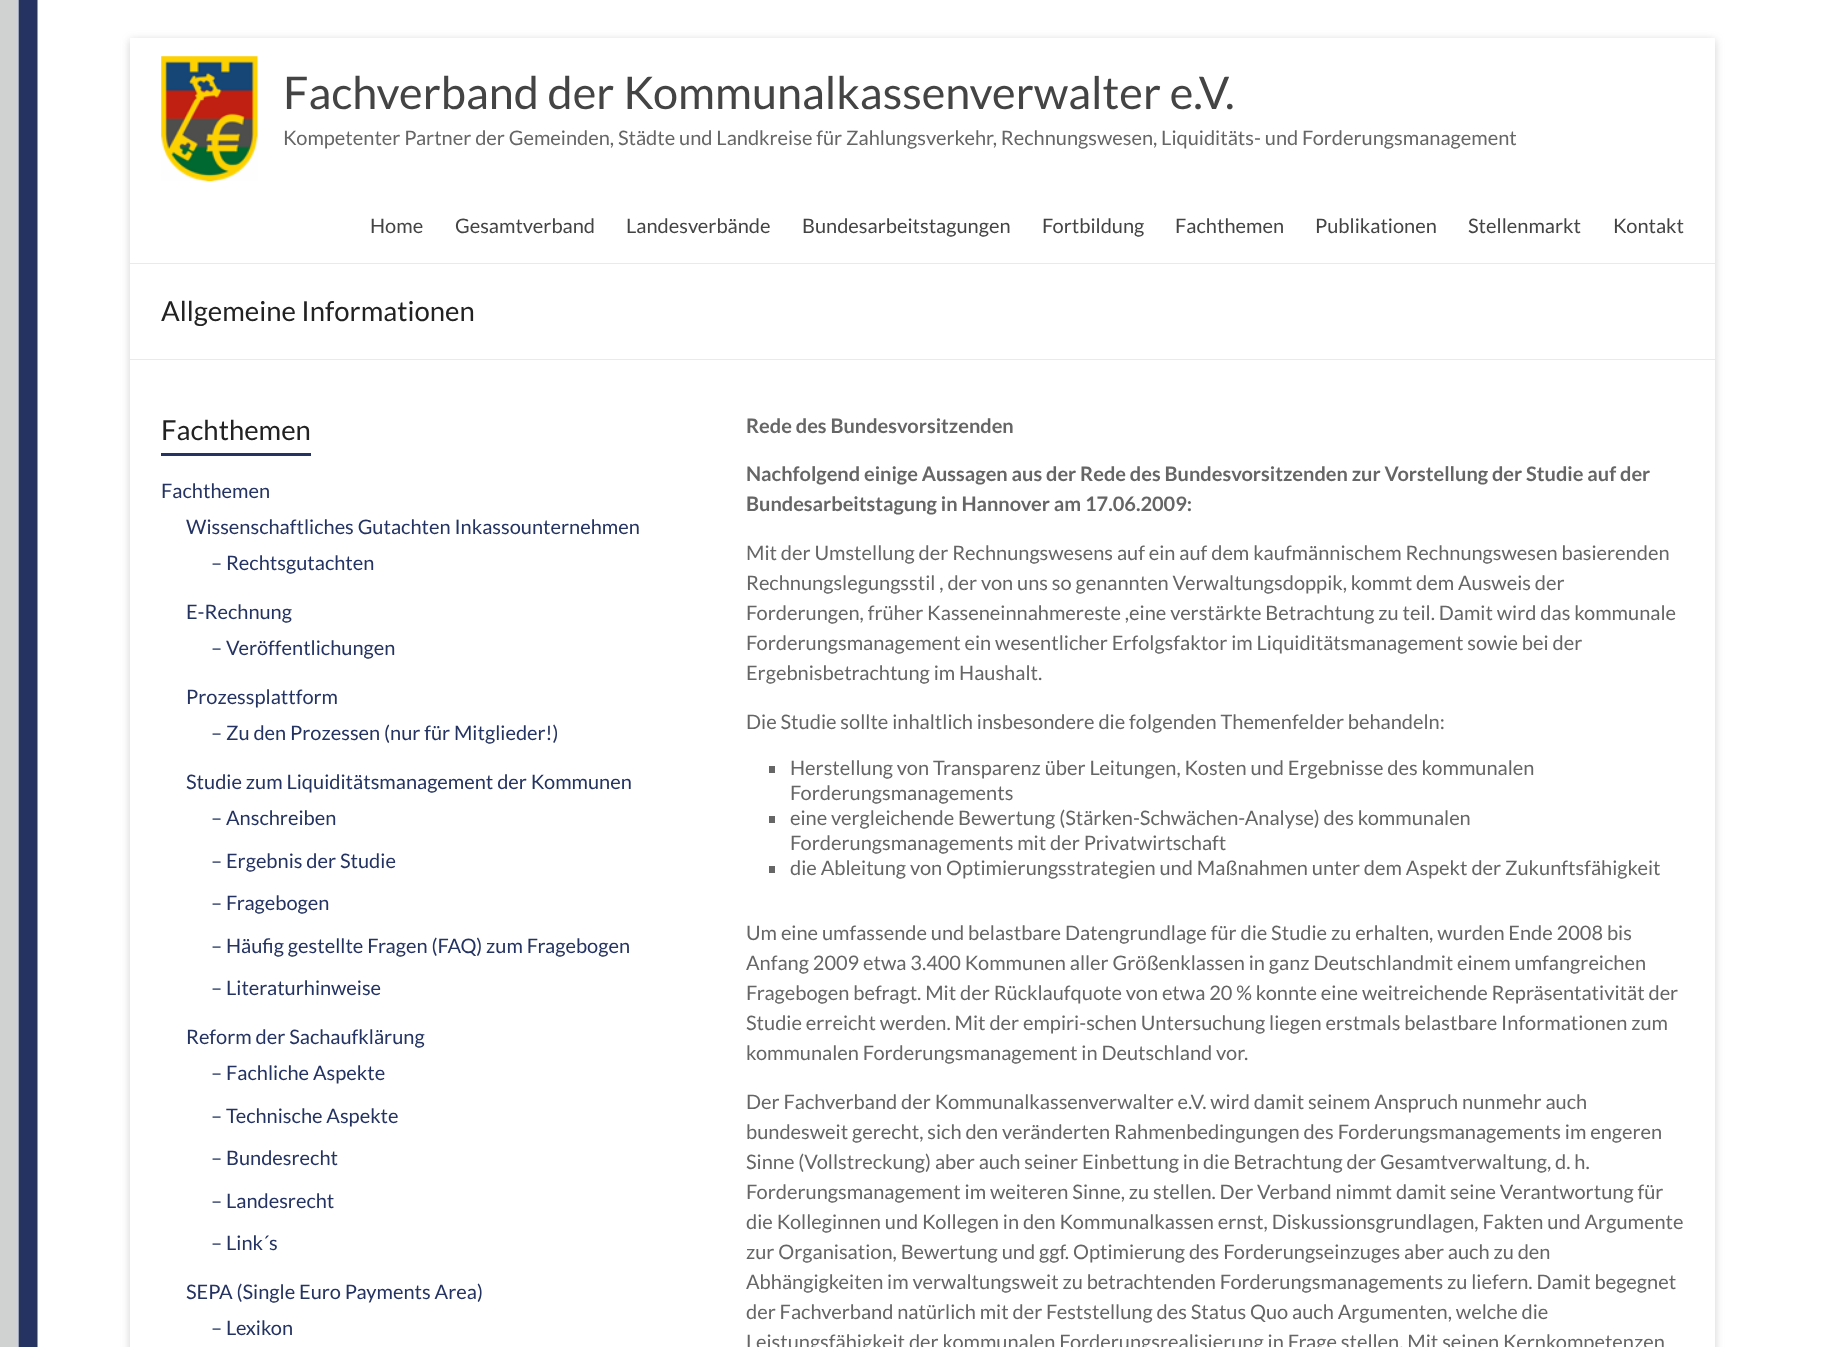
(async () => {
    const canvas = document.querySelector("canvas");
    canvas.width = 1844;
    canvas.height = 1347;
    const context = canvas.getContext("2d");
    context.miterLimit = 4;
    context.fontKerning = "normal";
    function write(s, x, y, font, color) {
        context.font = font;
        context.fillStyle = color;
        context.fillText(s, x, y);
    }
    function block(x, y, w, h, color) {
        context.fillStyle = color;
        context.fillRect(x, y, w, h);
    }
    async function photo(src, x, y, w, h) {
        const img = new Image();
        img.src = src;
        await img.decode();
        context.drawImage(img, x, y, w, h);
    }

    block(0, 0, 1844, 1347, "rgb(255, 255, 255)");
    await photo("media/1.png", 0, 0, 1844, 1347);
    context.save();
    context.beginPath();
    context.moveTo(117, 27);
    context.lineTo(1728, 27);
    context.lineTo(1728, 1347);
    context.lineTo(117, 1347);
    context.closePath();
    context.moveTo(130, 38);
    context.lineTo(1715, 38);
    context.lineTo(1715, 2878);
    context.lineTo(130, 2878);
    context.closePath();
    context.clip("evenodd");
    context.fillStyle = "rgba(100, 100, 100, 0.3)";
    context.filter = "blur(4px)";
    context.beginPath();
    context.rect(130, 40, 1585, 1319);
    context.fill();
    context.filter = "none";
    context.restore();
    block(130, 263, 1585, 1, "rgb(234, 234, 234)");
    await photo("media/2.png", 161, 56, 97, 126);
    write("Fachverband der Kommunalkassenverwalter e.V.", 283, 109, "45px Lato", "rgb(68, 68, 68)");
    write("Kompetenter Partner der Gemeinden, Städte und Landkreise für Zahlungsverkehr, Rechnungswesen, Liquiditäts- und Forderungsmanagement", 283, 145, "20px Lato", "rgb(102, 102, 102)");
    write("Home", 370, 233, "20px Lato", "rgb(68, 68, 68)");
    write("Gesamtverband", 455, 233, "20px Lato", "rgb(68, 68, 68)");
    write("Landesverbände", 626, 233, "20px Lato", "rgb(68, 68, 68)");
    write("Bundesarbeitstagungen", 802, 233, "20px Lato", "rgb(68, 68, 68)");
    write("Fortbildung", 1042, 233, "20px Lato", "rgb(68, 68, 68)");
    write("Fachthemen", 1175, 233, "20px Lato", "rgb(68, 68, 68)");
    write("Publikationen", 1315, 233, "20px Lato", "rgb(68, 68, 68)");
    write("Stellenmarkt", 1468, 233, "20px Lato", "rgb(68, 68, 68)");
    write("Kontakt", 1613, 233, "20px Lato", "rgb(68, 68, 68)");
    block(130, 359, 1585, 1, "rgb(234, 234, 234)");
    write("Allgemeine Informationen", 161, 321, "27.5px Lato", "rgb(34, 34, 34)");
    write("Fachthemen", 161, 440, "27.5px Lato", "rgb(34, 34, 34)");
    block(161, 453, 150, 3, "rgb(36, 51, 97)");
    write("Fachthemen", 161, 498, "20px Lato", "rgb(36, 51, 97)");
    write("Wissenschaftliches Gutachten Inkassounternehmen", 186, 534, "20px Lato", "rgb(36, 51, 97)");
    write("– Rechtsgutachten", 211, 570, "20px Lato", "rgb(36, 51, 97)");
    write("E-Rechnung", 186, 619, "20px Lato", "rgb(36, 51, 97)");
    write("– Veröffentlichungen", 211, 655, "20px Lato", "rgb(36, 51, 97)");
    write("Prozessplattform", 186, 704, "20px Lato", "rgb(36, 51, 97)");
    write("– Zu den Prozessen (nur für Mitglieder!)", 211, 740, "20px Lato", "rgb(36, 51, 97)");
    write("Studie zum Liquiditätsmanagement der Kommunen", 186, 789, "20px Lato", "rgb(36, 51, 97)");
    write("– Anschreiben", 211, 825, "20px Lato", "rgb(36, 51, 97)");
    write("– Ergebnis der Studie", 211, 868, "20px Lato", "rgb(36, 51, 97)");
    write("– Fragebogen", 211, 910, "20px Lato", "rgb(36, 51, 97)");
    write("– Häufig gestellte Fragen (FAQ) zum Fragebogen", 211, 953, "20px Lato", "rgb(36, 51, 97)");
    write("– Literaturhinweise", 211, 995, "20px Lato", "rgb(36, 51, 97)");
    write("Reform der Sachaufklärung", 186, 1044, "20px Lato", "rgb(36, 51, 97)");
    write("– Fachliche Aspekte", 211, 1080, "20px Lato", "rgb(36, 51, 97)");
    write("– Technische Aspekte", 211, 1123, "20px Lato", "rgb(36, 51, 97)");
    write("– Bundesrecht", 211, 1165, "20px Lato", "rgb(36, 51, 97)");
    write("– Landesrecht", 211, 1208, "20px Lato", "rgb(36, 51, 97)");
    write("– Link´s", 211, 1250, "20px Lato", "rgb(36, 51, 97)");
    write("SEPA (Single Euro Payments Area)", 186, 1299, "20px Lato", "rgb(36, 51, 97)");
    write("– Lexikon", 211, 1335, "20px Lato", "rgb(36, 51, 97)");
    write("Rede des Bundesvorsitzenden", 746, 433, "bold 20px Lato", "rgb(102, 102, 102)");
    write("Nachfolgend einige Aussagen aus der Rede des Bundesvorsitzenden zur Vorstellung der Studie auf der", 746, 481, "bold 20px Lato", "rgb(102, 102, 102)");
    write("Bundesarbeitstagung in Hannover am 17.06.2009:", 746, 511, "bold 20px Lato", "rgb(102, 102, 102)");
    write("Mit der Umstellung der Rechnungswesens auf ein auf dem kaufmännischem Rechnungswesen basierenden", 746, 560, "20px Lato", "rgb(102, 102, 102)");
    write("Rechnungslegungsstil , der von uns so genannten Verwaltungsdoppik, kommt dem Ausweis der", 746, 590, "20px Lato", "rgb(102, 102, 102)");
    write("Forderungen, früher Kasseneinnahmereste ,eine verstärkte Betrachtung zu teil. Damit wird das kommunale", 746, 620, "20px Lato", "rgb(102, 102, 102)");
    write("Forderungsmanagement ein wesentlicher Erfolgsfaktor im Liquiditätsmanagement sowie bei der", 746, 650, "20px Lato", "rgb(102, 102, 102)");
    write("Ergebnisbetrachtung im Haushalt.", 746, 680, "20px Lato", "rgb(102, 102, 102)");
    write("Die Studie sollte inhaltlich insbesondere die folgenden Themenfelder behandeln:", 746, 729, "20px Lato", "rgb(102, 102, 102)");
    block(769, 766, 6, 7, "rgb(102, 102, 102)");
    write("Herstellung von Transparenz über Leitungen, Kosten und Ergebnisse des kommunalen", 790, 775, "20px Lato", "rgb(102, 102, 102)");
    write("Forderungsmanagements", 790, 800, "20px Lato", "rgb(102, 102, 102)");
    block(769, 816, 6, 7, "rgb(102, 102, 102)");
    write("eine vergleichende Bewertung (Stärken-Schwächen-Analyse) des kommunalen", 790, 825, "20px Lato", "rgb(102, 102, 102)");
    write("Forderungsmanagements mit der Privatwirtschaft", 790, 850, "20px Lato", "rgb(102, 102, 102)");
    block(769, 866, 6, 7, "rgb(102, 102, 102)");
    write("die Ableitung von Optimierungsstrategien und Maßnahmen unter dem Aspekt der Zukunftsfähigkeit", 790, 875, "20px Lato", "rgb(102, 102, 102)");
    write("Um eine umfassende und belastbare Datengrundlage für die Studie zu erhalten, wurden Ende 2008 bis", 746, 940, "20px Lato", "rgb(102, 102, 102)");
    write("Anfang 2009 etwa 3.400 Kommunen aller Größenklassen in ganz Deutschlandmit einem umfangreichen", 746, 970, "20px Lato", "rgb(102, 102, 102)");
    write("Fragebogen befragt. Mit der Rücklaufquote von etwa 20 % konnte eine weitreichende Repräsentativität der", 746, 1000, "20px Lato", "rgb(102, 102, 102)");
    write("Studie erreicht werden. Mit der empiri-schen Untersuchung liegen erstmals belastbare Informationen zum", 746, 1030, "20px Lato", "rgb(102, 102, 102)");
    write("kommunalen Forderungsmanagement in Deutschland vor.", 746, 1060, "20px Lato", "rgb(102, 102, 102)");
    write("Der Fachverband der Kommunalkassenverwalter e.V. wird damit seinem Anspruch nunmehr auch", 746, 1109, "20px Lato", "rgb(102, 102, 102)");
    write("bundesweit gerecht, sich den veränderten Rahmenbedingungen des Forderungsmanagements im engeren", 746, 1139, "20px Lato", "rgb(102, 102, 102)");
    write("Sinne (Vollstreckung) aber auch seiner Einbettung in die Betrachtung der Gesamtverwaltung, d. h.", 746, 1169, "20px Lato", "rgb(102, 102, 102)");
    write("Forderungsmanagement im weiteren Sinne, zu stellen. Der Verband nimmt damit seine Verantwortung für", 746, 1199, "20px Lato", "rgb(102, 102, 102)");
    write("die Kolleginnen und Kollegen in den Kommunalkassen ernst, Diskussionsgrundlagen, Fakten und Argumente", 746, 1229, "20px Lato", "rgb(102, 102, 102)");
    write("zur Organisation, Bewertung und ggf. Optimierung des Forderungseinzuges aber auch zu den", 746, 1259, "20px Lato", "rgb(102, 102, 102)");
    write("Abhängigkeiten im verwaltungsweit zu betrachtenden Forderungsmanagements zu liefern. Damit begegnet", 746, 1289, "20px Lato", "rgb(102, 102, 102)");
    write("der Fachverband natürlich mit der Feststellung des Status Quo auch Argumenten, welche die", 746, 1319, "20px Lato", "rgb(102, 102, 102)");
    write("Leistungsfähigkeit der kommunalen Forderungsrealisierung in Frage stellen. Mit seinen Kernkompetenzen", 746, 1349, "20px Lato", "rgb(102, 102, 102)");
})();
